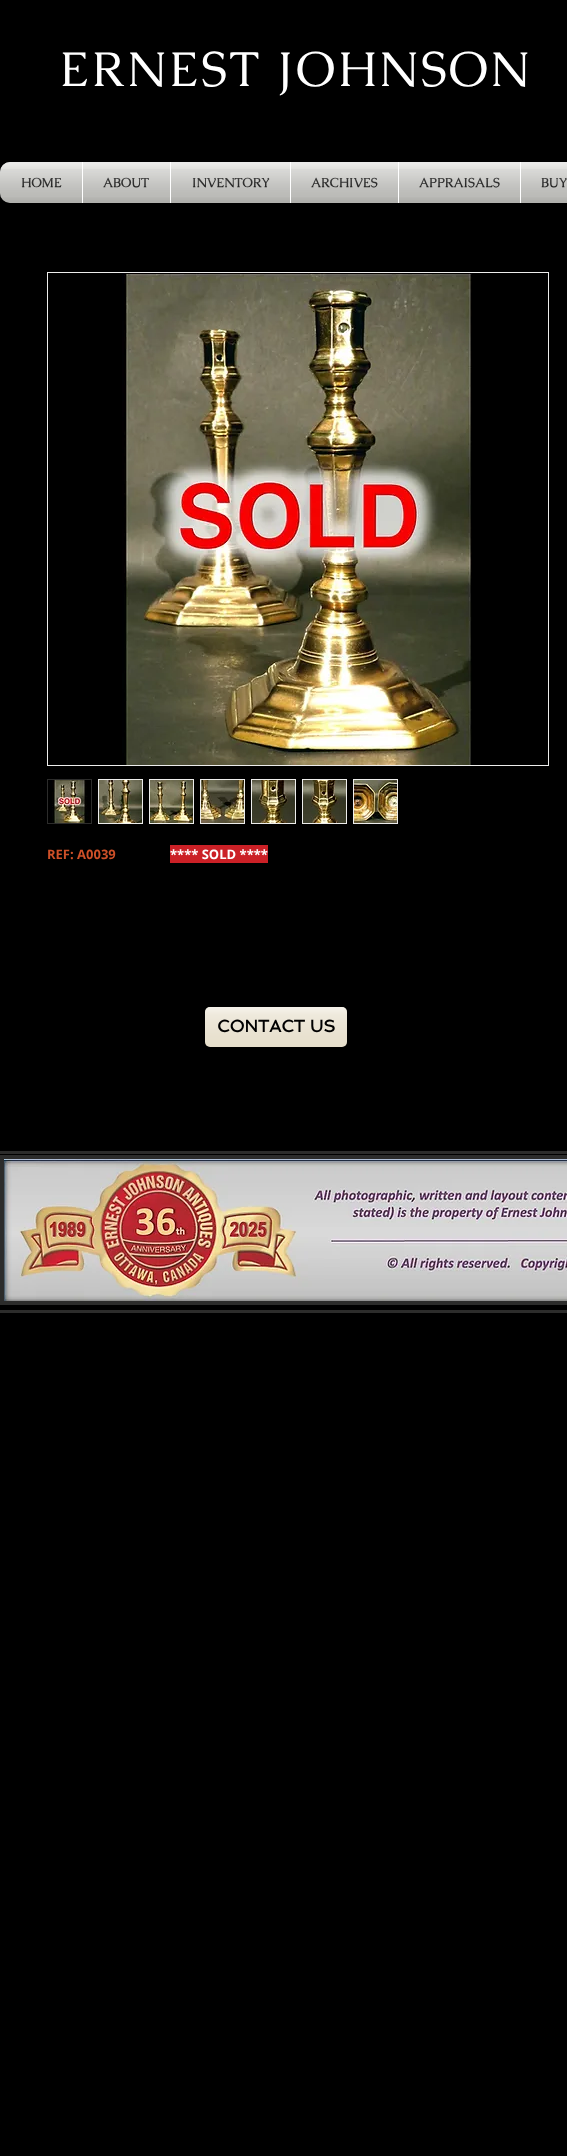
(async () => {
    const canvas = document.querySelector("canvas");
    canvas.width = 567;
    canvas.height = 2156;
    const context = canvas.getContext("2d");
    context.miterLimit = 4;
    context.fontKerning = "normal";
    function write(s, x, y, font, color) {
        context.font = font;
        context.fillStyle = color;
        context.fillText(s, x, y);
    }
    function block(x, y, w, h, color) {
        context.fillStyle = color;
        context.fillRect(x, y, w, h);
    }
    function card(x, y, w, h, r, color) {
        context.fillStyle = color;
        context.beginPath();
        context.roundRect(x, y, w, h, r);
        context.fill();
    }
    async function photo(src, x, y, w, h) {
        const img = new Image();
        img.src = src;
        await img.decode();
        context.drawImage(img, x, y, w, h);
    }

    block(0, 0, 567, 2156, "rgb(0, 0, 0)");
    context.letterSpacing = "2.5px";
    write("ERNEST JOHNSON", 59, 86, "49px Caudex", "rgb(255, 255, 255)");
    await photo("media/1.png", 0, 162, 10, 36);
    await photo("media/2.png", 0, 193, 10, 10);
    context.fillStyle = "rgb(205, 205, 201)";
    context.beginPath();
    context.roundRect(0, 162, 82, 41, [10, 0, 0, 10]);
    context.fill();
    context.letterSpacing = "0px";
    write("HOME", 21, 187, "bold 13px Caudex", "rgb(0, 0, 0)");
    await photo("media/3.png", 0, 162, 82, 35);
    await photo("media/4.png", 0, 169, 82, 34);
    block(83, 162, 87, 41, "rgb(205, 205, 201)");
    block(82, 162, 1, 41, "rgb(255, 255, 255)");
    write("ABOUT", 103, 187, "bold 13px Caudex", "rgb(0, 0, 0)");
    await photo("media/5.png", 83, 162, 87, 35);
    await photo("media/6.png", 83, 169, 87, 34);
    block(171, 162, 119, 41, "rgb(205, 205, 201)");
    block(170, 162, 1, 41, "rgb(255, 255, 255)");
    write("INVENTORY", 192, 187, "bold 13px Caudex", "rgb(0, 0, 0)");
    await photo("media/7.png", 171, 162, 119, 35);
    await photo("media/8.png", 171, 169, 119, 34);
    block(291, 162, 107, 41, "rgb(205, 205, 201)");
    block(290, 162, 1, 41, "rgb(255, 255, 255)");
    write("ARCHIVES", 311, 187, "bold 13px Caudex", "rgb(0, 0, 0)");
    await photo("media/9.png", 291, 162, 107, 35);
    await photo("media/10.png", 291, 169, 107, 34);
    block(399, 162, 121, 41, "rgb(205, 205, 201)");
    block(398, 162, 1, 41, "rgb(255, 255, 255)");
    write("APPRAISALS", 419, 187, "bold 13px Caudex", "rgb(0, 0, 0)");
    await photo("media/11.png", 399, 162, 121, 35);
    await photo("media/12.png", 399, 169, 121, 34);
    block(521, 162, 46, 41, "rgb(205, 205, 201)");
    block(520, 162, 1, 41, "rgb(255, 255, 255)");
    write("BUY", 541, 187, "bold 13px Caudex", "rgb(0, 0, 0)");
    await photo("media/13.png", 521, 162, 46, 35);
    await photo("media/14.png", 521, 169, 46, 34);
    context.strokeStyle = "rgb(237, 237, 236)";
    context.strokeRect(47.5, 272.5, 501, 493);
    await photo("media/15.png", 122, 273, 350, 492);
    context.strokeStyle = "rgb(44, 44, 43)";
    context.strokeRect(47.5, 779.5, 44, 44);
    await photo("media/16.png", 48, 780, 43, 43);
    block(98, 779, 45, 45, "rgb(237, 237, 236)");
    await photo("media/17.png", 99, 780, 43, 43);
    block(149, 779, 45, 45, "rgb(237, 237, 236)");
    await photo("media/18.png", 150, 780, 43, 43);
    block(200, 779, 45, 45, "rgb(237, 237, 236)");
    await photo("media/19.png", 201, 780, 43, 43);
    block(251, 779, 45, 45, "rgb(237, 237, 236)");
    await photo("media/20.png", 252, 780, 43, 43);
    block(302, 779, 45, 45, "rgb(237, 237, 236)");
    await photo("media/21.png", 303, 780, 43, 43);
    block(353, 779, 45, 45, "rgb(237, 237, 236)");
    await photo("media/22.png", 354, 780, 43, 43);
    write("REF: A0039", 47, 859, "bold 13px Open Sans", "rgb(206, 80, 40)");
    block(170, 845, 98, 18, "rgb(203, 32, 38)");
    write("**** SOLD ****", 170, 859, "bold 13px Open Sans", "rgb(255, 255, 255)");
    card(205, 1007, 142, 40, 5, "rgb(230, 222, 202)");
    await photo("media/23.png", 205, 1007, 142, 39);
    write("CONTACT US", 217, 1032, "bold 17px Spinnaker", "rgb(0, 0, 0)");
    block(0, 1151, 567, 3, "rgb(44, 44, 43)");
    block(0, 1310, 567, 3, "rgb(44, 44, 43)");
    context.beginPath();
    context.moveTo(2, 1157);
    context.lineTo(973, 1157);
    context.lineTo(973, 1303);
    context.lineTo(2, 1303);
    context.closePath();
    context.lineWidth = 4;
    context.stroke();
    await photo("media/24.png", 4, 1159, 563, 142);
})();
